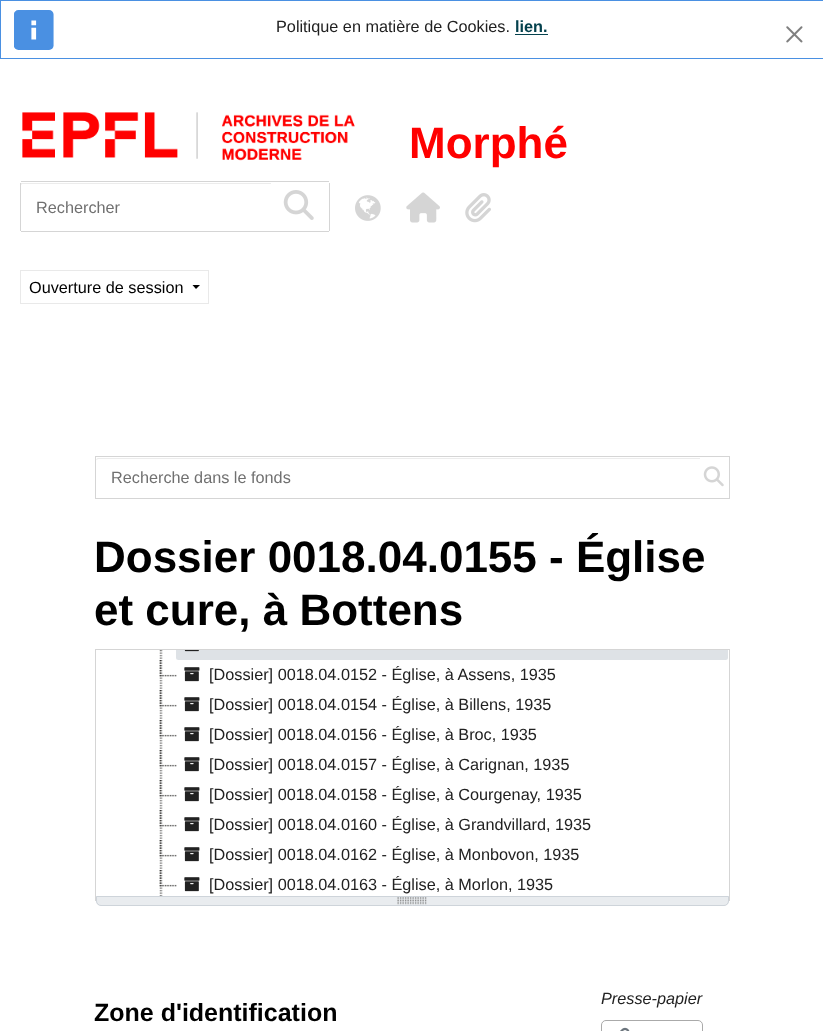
(async () => {
    const canvas = document.querySelector("canvas");
    canvas.width = 823;
    canvas.height = 1031;
    const context = canvas.getContext("2d");
    context.miterLimit = 4;
    context.fontKerning = "normal";
    function write(s, x, y, font, color) {
        context.font = font;
        context.fillStyle = color;
        context.fillText(s, x, y);
    }
    function block(x, y, w, h, color) {
        context.fillStyle = color;
        context.fillRect(x, y, w, h);
    }
    async function photo(src, x, y, w, h) {
        const img = new Image();
        img.src = src;
        await img.decode();
        context.drawImage(img, x, y, w, h);
    }

    block(0, 0, 823, 1031, "rgb(255, 255, 255)");
    context.strokeStyle = "rgb(74, 144, 226)";
    context.strokeRect(0.5, 0.5, 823, 58);
    await photo("media/1.png", 14, 10, 40, 40);
    write("Politique en matière de Cookies.", 276, 32, "16.25px Liberation Sans", "rgb(33, 33, 33)");
    write("lien.", 515, 32, "bold 16.25px Liberation Sans", "rgb(4, 65, 77)");
    block(515, 34, 33, 1, "rgb(4, 65, 77)");
    await photo("media/2.png", 786, 26, 17, 17);
    await photo("media/3.png", 22, 112, 333, 49);
    write("Morphé", 409, 158, "bold 44px Liberation Sans", "rgb(255, 0, 0)");
    context.fillStyle = "rgb(236, 236, 236)";
    context.beginPath();
    context.moveTo(22, 184);
    context.lineTo(271, 184);
    context.lineTo(271, 183);
    context.lineTo(22, 183);
    context.lineTo(21, 183);
    context.lineTo(21, 185);
    context.closePath();
    context.fill();
    block(21, 181, 308, 1, "rgb(213, 213, 213)");
    block(21, 231, 308, 1, "rgb(213, 213, 213)");
    block(20, 183, 1, 48, "rgb(213, 213, 213)");
    write("Rechercher", 36, 213, "16.25px Liberation Sans", "rgb(112, 112, 112)");
    block(329, 183, 1, 48, "rgb(213, 213, 213)");
    await photo("media/4.png", 283, 190, 31, 30);
    await photo("media/5.png", 355, 195, 26, 26);
    await photo("media/6.png", 406, 192, 34, 31);
    await photo("media/7.png", 465, 193, 26, 30);
    context.strokeStyle = "rgb(233, 233, 233)";
    context.strokeRect(20.5, 270.5, 188, 33);
    write("Ouverture de session", 29, 293, "16.25px Liberation Sans", "rgb(0, 0, 0)");
    context.beginPath();
    context.moveTo(192.5, 285);
    context.lineTo(200, 285);
    context.lineTo(196, 289);
    context.closePath();
    context.fill();
    context.strokeStyle = "rgb(213, 213, 213)";
    context.strokeRect(95.5, 456.5, 634, 42);
    context.fillStyle = "rgb(236, 236, 236)";
    context.beginPath();
    context.moveTo(99, 459);
    context.lineTo(700, 459);
    context.lineTo(700, 458);
    context.lineTo(98, 458);
    context.bezierCurveTo(97, 458, 96, 459, 96, 461);
    context.bezierCurveTo(96, 460, 97, 459, 99, 459);
    context.closePath();
    context.fill();
    write("Recherche dans le fonds", 111, 483, "16.25px Liberation Sans", "rgb(112, 112, 112)");
    await photo("media/8.png", 703, 466, 21, 21);
    write("Dossier 0018.04.0155 - Église", 94, 572, "bold 44px Liberation Sans", "rgb(0, 0, 0)");
    write("et cure, à Bottens", 94, 625, "bold 44px Liberation Sans", "rgb(0, 0, 0)");
    context.strokeRect(95.5, 649.5, 634, 251);
    await photo("media/9.png", 159, 650, 4, 9);
    context.fillStyle = "rgb(222, 226, 230)";
    context.beginPath();
    context.roundRect(176, 650, 552, 10, [0, 0, 2.5, 2.5]);
    context.fill();
    await photo("media/10.png", 184, 650, 15, 2);
    await photo("media/11.png", 159, 660, 4, 29);
    await photo("media/12.png", 159, 660, 18, 17);
    await photo("media/13.png", 184, 667, 16, 15);
    write("[Dossier] 0018.04.0152 - Église, à Assens, 1935", 209, 680, "16.25px Liberation Sans", "rgb(33, 33, 33)");
    await photo("media/11.png", 159, 690, 4, 29);
    await photo("media/12.png", 159, 690, 18, 17);
    await photo("media/13.png", 184, 697, 16, 15);
    write("[Dossier] 0018.04.0154 - Église, à Billens, 1935", 209, 710, "16.25px Liberation Sans", "rgb(33, 33, 33)");
    await photo("media/11.png", 159, 720, 4, 29);
    await photo("media/12.png", 159, 720, 18, 17);
    await photo("media/13.png", 184, 727, 16, 15);
    write("[Dossier] 0018.04.0156 - Église, à Broc, 1935", 209, 740, "16.25px Liberation Sans", "rgb(33, 33, 33)");
    await photo("media/11.png", 159, 750, 4, 29);
    await photo("media/12.png", 159, 750, 18, 17);
    await photo("media/13.png", 184, 757, 16, 15);
    write("[Dossier] 0018.04.0157 - Église, à Carignan, 1935", 209, 770, "16.25px Liberation Sans", "rgb(33, 33, 33)");
    await photo("media/11.png", 159, 780, 4, 29);
    await photo("media/12.png", 159, 780, 18, 17);
    await photo("media/13.png", 184, 787, 16, 15);
    write("[Dossier] 0018.04.0158 - Église, à Courgenay, 1935", 209, 800, "16.25px Liberation Sans", "rgb(33, 33, 33)");
    await photo("media/11.png", 159, 810, 4, 29);
    await photo("media/12.png", 159, 810, 18, 17);
    await photo("media/13.png", 184, 817, 16, 15);
    write("[Dossier] 0018.04.0160 - Église, à Grandvillard, 1935", 209, 830, "16.25px Liberation Sans", "rgb(33, 33, 33)");
    await photo("media/11.png", 159, 840, 4, 29);
    await photo("media/12.png", 159, 840, 18, 17);
    await photo("media/13.png", 184, 847, 16, 15);
    write("[Dossier] 0018.04.0162 - Église, à Monbovon, 1935", 209, 860, "16.25px Liberation Sans", "rgb(33, 33, 33)");
    await photo("media/14.png", 159, 870, 4, 26);
    await photo("media/12.png", 159, 870, 18, 17);
    await photo("media/13.png", 184, 877, 16, 15);
    write("[Dossier] 0018.04.0163 - Église, à Morlon, 1935", 209, 890, "16.25px Liberation Sans", "rgb(33, 33, 33)");
    context.fillStyle = "rgb(233, 236, 239)";
    context.beginPath();
    context.roundRect(96, 896, 633, 10, [0, 0, 5, 5]);
    context.fill();
    await photo("media/15.png", 397, 897, 30, 8);
    context.beginPath();
    context.roundRect(96.5, 896.5, 632, 9, [0, 0, 4.5, 4.5]);
    context.strokeStyle = "rgb(206, 212, 218)";
    context.stroke();
    write("Presse-papier", 601, 1004, "italic 16.25px Liberation Sans", "rgb(33, 33, 33)");
    context.beginPath();
    context.roundRect(601.5, 1020.5, 101, 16, 4.5);
    context.strokeStyle = "rgb(170, 170, 170)";
    context.stroke();
    await photo("media/16.png", 620, 1027, 10, 4);
    write("Zone d'identification", 94, 1021, "bold 25px Liberation Sans", "rgb(0, 0, 0)");
})();
